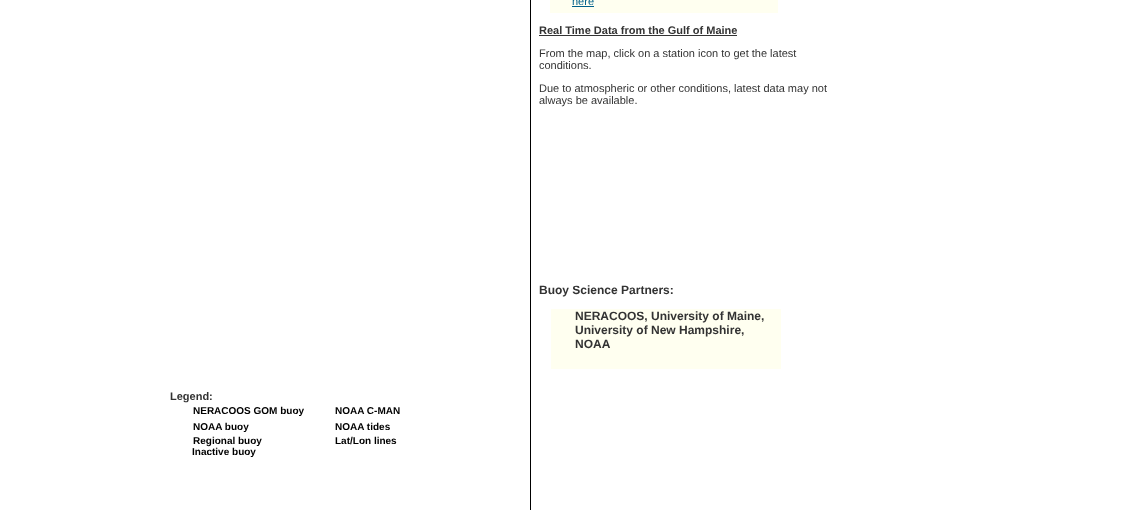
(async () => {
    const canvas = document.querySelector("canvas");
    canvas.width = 1141;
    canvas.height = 510;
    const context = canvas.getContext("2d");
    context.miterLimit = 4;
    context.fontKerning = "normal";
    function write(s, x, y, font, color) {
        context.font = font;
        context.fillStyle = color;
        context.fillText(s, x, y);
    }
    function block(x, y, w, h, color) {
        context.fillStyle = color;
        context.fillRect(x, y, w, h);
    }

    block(0, 0, 1141, 510, "rgb(255, 255, 255)");
    block(550, 0, 228, 13, "rgb(255, 255, 240)");
    write("here", 572, 5, "11px Liberation Sans", "rgb(0, 96, 138)");
    block(572, 6, 22, 1, "rgb(0, 96, 138)");
    write("Real Time Data from the Gulf of Maine", 539, 34, "bold 11px Liberation Sans", "rgb(51, 51, 51)");
    block(539, 35, 198, 1, "rgb(51, 51, 51)");
    write("From the map, click on a station icon to get the latest", 539, 57, "11px Liberation Sans", "rgb(51, 51, 51)");
    write("conditions.", 539, 69, "11px Liberation Sans", "rgb(51, 51, 51)");
    write("Due to atmospheric or other conditions, latest data may not", 539, 92, "11px Liberation Sans", "rgb(51, 51, 51)");
    write("always be available.", 539, 104, "11px Liberation Sans", "rgb(51, 51, 51)");
    write("Buoy Science Partners:", 539, 294, "bold 12px Liberation Sans", "rgb(51, 51, 51)");
    block(551, 309, 230, 60, "rgb(255, 255, 240)");
    write("NERACOOS, University of Maine,", 575, 320, "bold 12px Liberation Sans", "rgb(51, 51, 51)");
    write("University of New Hampshire,", 575, 334, "bold 12px Liberation Sans", "rgb(51, 51, 51)");
    write("NOAA", 575, 348, "bold 12px Liberation Sans", "rgb(51, 51, 51)");
    block(530, 0, 1, 510, "rgb(0, 0, 0)");
    write("Legend:", 170, 400, "bold 11px Liberation Sans", "rgb(51, 51, 51)");
    write("NERACOOS GOM buoy", 193, 414, "bold 10px Liberation Sans", "rgb(0, 0, 0)");
    write("NOAA C-MAN", 335, 414, "bold 10px Liberation Sans", "rgb(0, 0, 0)");
    write("NOAA buoy", 193, 430, "bold 10px Liberation Sans", "rgb(0, 0, 0)");
    write("NOAA tides", 335, 430, "bold 10px Liberation Sans", "rgb(0, 0, 0)");
    write("Regional buoy", 193, 444, "bold 10px Liberation Sans", "rgb(0, 0, 0)");
    write("Lat/Lon lines", 335, 444, "bold 10px Liberation Sans", "rgb(0, 0, 0)");
    write("Inactive buoy", 192, 455, "bold 10px Liberation Sans", "rgb(0, 0, 0)");
})();
